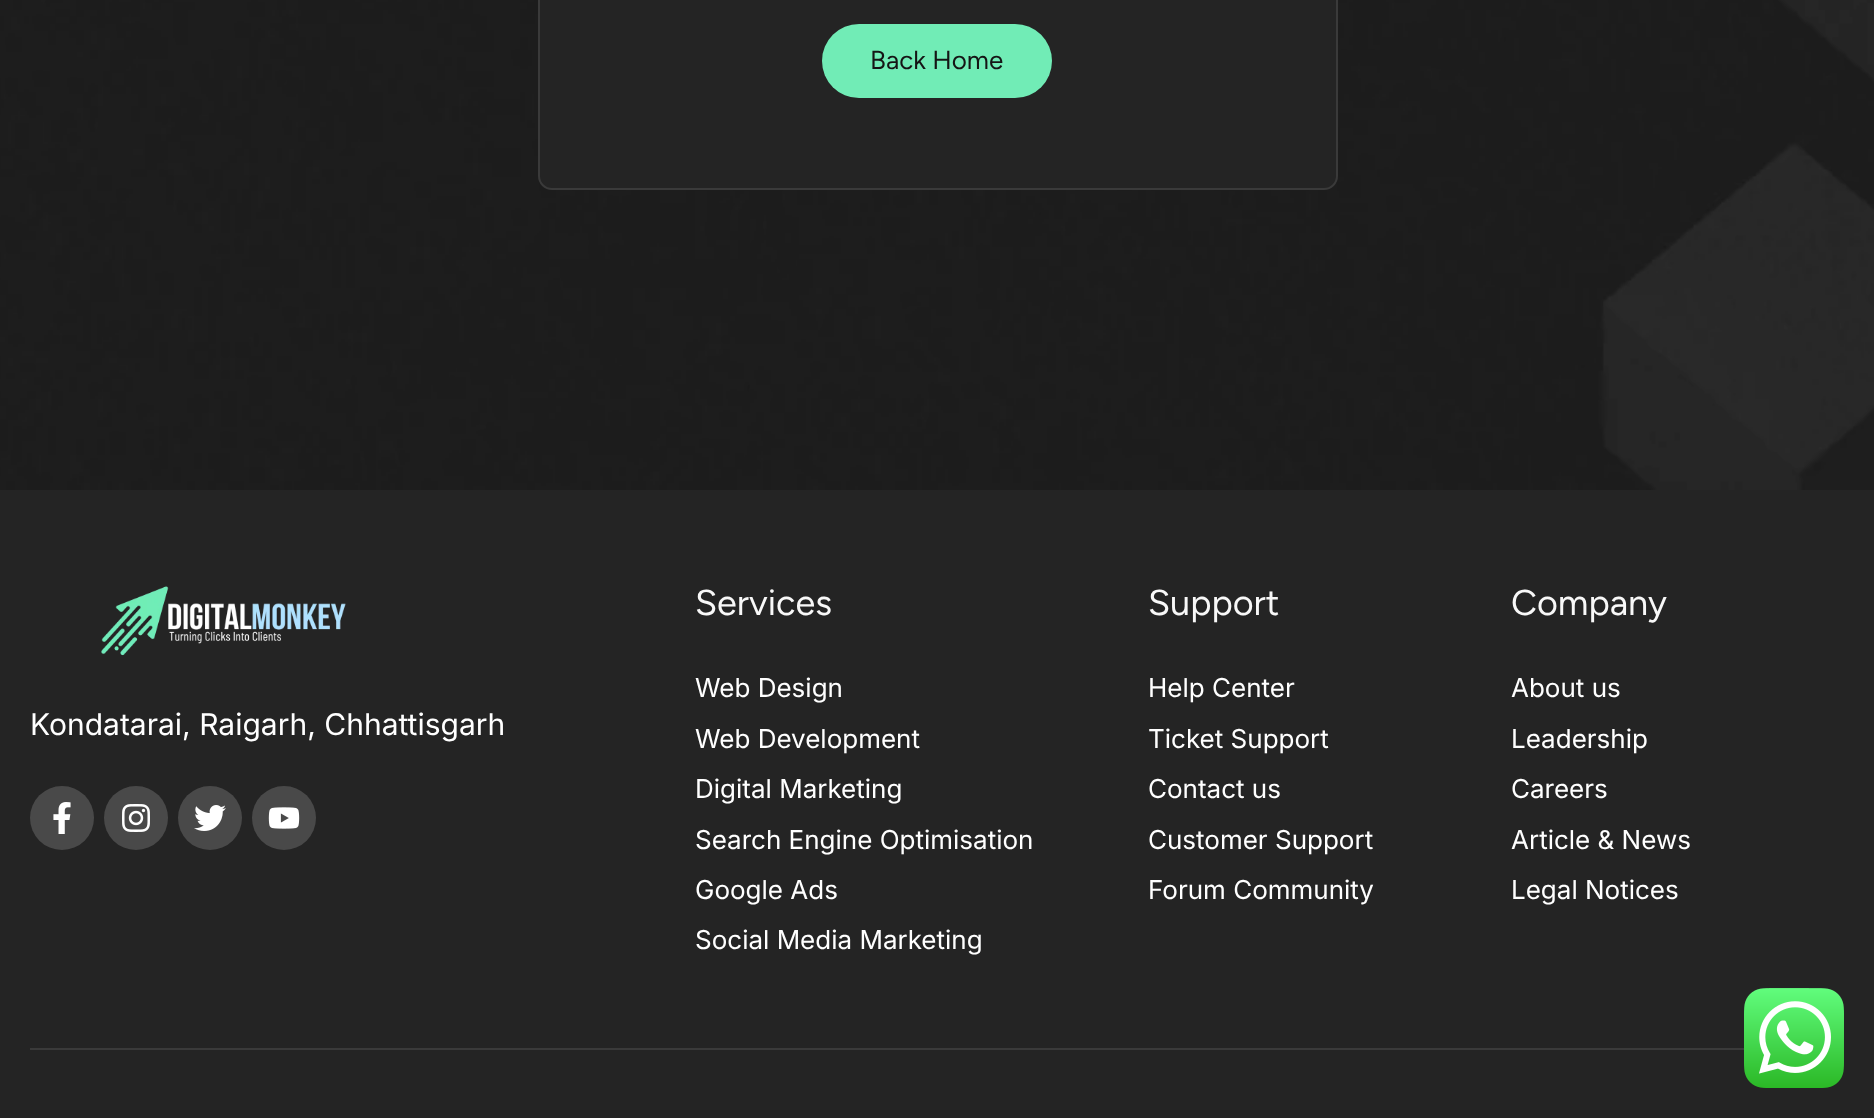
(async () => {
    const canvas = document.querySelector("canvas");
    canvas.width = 1874;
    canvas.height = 1118;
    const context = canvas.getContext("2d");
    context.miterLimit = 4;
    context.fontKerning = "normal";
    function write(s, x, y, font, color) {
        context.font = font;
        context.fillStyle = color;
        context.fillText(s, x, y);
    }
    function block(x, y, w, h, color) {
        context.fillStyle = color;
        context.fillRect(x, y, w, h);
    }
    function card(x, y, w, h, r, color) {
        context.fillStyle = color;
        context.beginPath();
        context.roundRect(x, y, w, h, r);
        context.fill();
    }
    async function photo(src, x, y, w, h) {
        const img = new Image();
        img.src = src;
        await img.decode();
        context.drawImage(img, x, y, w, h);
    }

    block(0, 0, 1874, 1118, "rgb(255, 255, 255)");
    await photo("media/1.png", 0, 0, 1874, 490);
    context.fillStyle = "rgb(36, 36, 36)";
    context.beginPath();
    context.roundRect(539, -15, 798, 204, 13);
    context.fill();
    context.strokeStyle = "rgb(58, 58, 58)";
    context.lineWidth = 2;
    context.stroke();
    card(822, 24, 230, 74, 37, "rgb(113, 236, 182)");
    write("Back Home", 870, 69, "26px Figtree", "rgb(21, 21, 21)");
    block(0, 490, 1874, 628, "rgb(36, 36, 36)");
    await photo("media/2.png", 101, 586, 245, 70);
    write("Kondatarai, Raigarh, Chhattisgarh", 30, 735, "30px Inter", "rgb(255, 255, 255)");
    context.fillStyle = "rgb(73, 73, 73)";
    context.beginPath();
    context.arc(62, 818, 32, 0, Math.PI * 2);
    context.fill();
    await photo("media/3.png", 53, 802, 18, 32);
    context.beginPath();
    context.arc(136, 818, 32, 0, Math.PI * 2);
    context.fill();
    await photo("media/4.png", 122, 804, 28, 28);
    context.beginPath();
    context.arc(210, 818, 32, 0, Math.PI * 2);
    context.fill();
    await photo("media/5.png", 194, 805, 32, 26);
    context.beginPath();
    context.arc(284, 818, 32, 0, Math.PI * 2);
    context.fill();
    await photo("media/6.png", 268, 807, 32, 22);
    write("Services", 695, 615, "36px Figtree", "rgb(248, 248, 248)");
    write("Web Design", 695, 697, "26px Inter", "rgb(255, 255, 255)");
    write("Web Development", 695, 748, "26px Inter", "rgb(255, 255, 255)");
    write("Digital Marketing", 695, 798, "26px Inter", "rgb(255, 255, 255)");
    write("Search Engine Optimisation", 695, 849, "26px Inter", "rgb(255, 255, 255)");
    write("Google Ads", 695, 899, "26px Inter", "rgb(255, 255, 255)");
    write("Social Media Marketing", 695, 949, "26px Inter", "rgb(255, 255, 255)");
    write("Support", 1148, 615, "36px Figtree", "rgb(248, 248, 248)");
    write("Help Center", 1148, 697, "26px Inter", "rgb(255, 255, 255)");
    write("Ticket Support", 1148, 748, "26px Inter", "rgb(255, 255, 255)");
    write("Contact us", 1148, 798, "26px Inter", "rgb(255, 255, 255)");
    write("Customer Support", 1148, 849, "26px Inter", "rgb(255, 255, 255)");
    write("Forum Community", 1148, 899, "26px Inter", "rgb(255, 255, 255)");
    write("Company", 1511, 615, "36px Figtree", "rgb(248, 248, 248)");
    write("About us", 1511, 697, "26px Inter", "rgb(255, 255, 255)");
    write("Leadership", 1511, 748, "26px Inter", "rgb(255, 255, 255)");
    write("Careers", 1511, 798, "26px Inter", "rgb(255, 255, 255)");
    write("Article & News", 1511, 849, "26px Inter", "rgb(255, 255, 255)");
    write("Legal Notices", 1511, 899, "26px Inter", "rgb(255, 255, 255)");
    block(30, 1048, 1814, 2, "rgb(58, 58, 58)");
    await photo("media/7.png", 1744, 988, 100, 100);
})();
